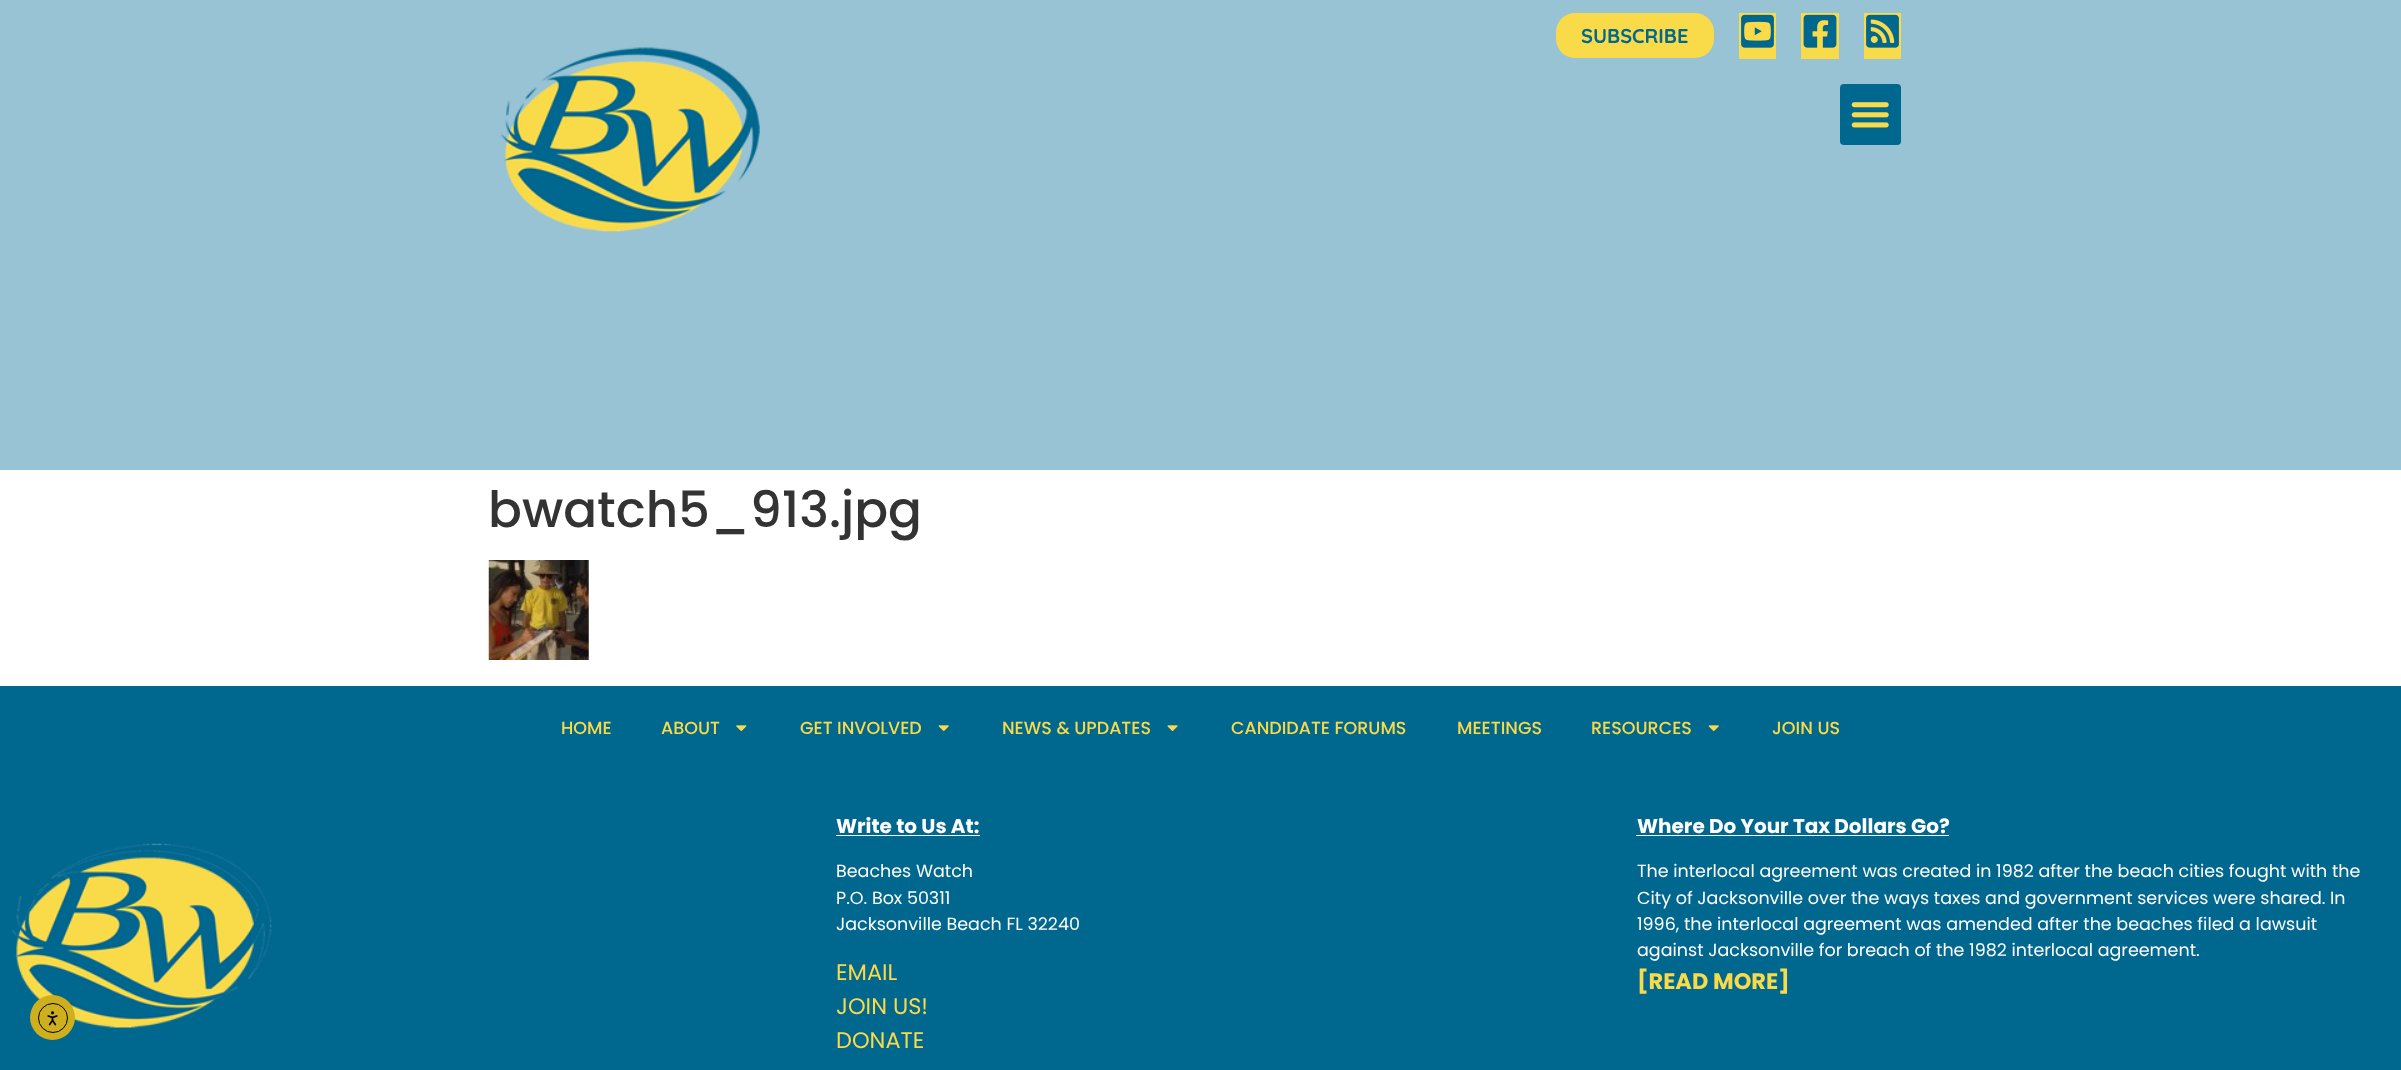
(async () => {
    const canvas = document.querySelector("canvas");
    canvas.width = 2401;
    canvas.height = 1070;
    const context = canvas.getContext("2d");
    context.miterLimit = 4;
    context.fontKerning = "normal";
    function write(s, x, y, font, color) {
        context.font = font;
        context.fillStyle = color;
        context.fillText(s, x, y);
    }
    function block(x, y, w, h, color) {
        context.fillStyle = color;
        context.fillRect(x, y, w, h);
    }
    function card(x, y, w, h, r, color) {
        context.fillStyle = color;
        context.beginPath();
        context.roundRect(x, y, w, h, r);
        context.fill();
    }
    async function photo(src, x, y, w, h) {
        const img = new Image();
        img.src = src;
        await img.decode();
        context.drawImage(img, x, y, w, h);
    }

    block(0, 0, 2401, 1070, "rgb(255, 255, 255)");
    block(0, 0, 2401, 470, "rgb(151, 195, 212)");
    card(1556, 13, 158, 45, 19, "rgb(249, 218, 73)");
    write("SUBSCRIBE", 1581, 43, "bold 20px Quicksand", "rgb(0, 103, 143)");
    block(1739, 13, 37, 46, "rgb(249, 218, 73)");
    await photo("media/1.png", 1741, 14, 33, 34);
    block(1801, 13, 38, 46, "rgb(249, 218, 73)");
    await photo("media/2.png", 1803, 14, 34, 34);
    block(1864, 13, 37, 46, "rgb(249, 218, 73)");
    await photo("media/3.png", 1866, 14, 33, 34);
    card(1840, 84, 61, 61, 4, "rgb(0, 103, 143)");
    await photo("media/4.png", 1851, 102, 38, 26);
    await photo("media/5.png", 501, 47, 259, 185);
    write("bwatch5_913.jpg", 488, 527, "500 50px Poppins", "rgb(51, 51, 51)");
    await photo("media/6.png", 488, 560, 101, 100);
    block(0, 686, 2401, 384, "rgb(0, 103, 143)");
    await photo("media/11.png", 12, 843, 260, 185);
    context.fillStyle = "rgb(206, 175, 29)";
    context.beginPath();
    context.arc(52.5, 1017.5, 22.5, 0, Math.PI * 2);
    context.fill();
    context.beginPath();
    context.arc(53, 1018, 14.5, 0, Math.PI * 2);
    context.strokeStyle = "rgb(0, 0, 0)";
    context.stroke();
    await photo("media/7.png", 47, 1011, 11, 15);
    write("HOME", 561, 734, "500 17.5px Poppins", "rgb(249, 218, 73)");
    write("ABOUT", 661, 734, "500 17.5px Poppins", "rgb(249, 218, 73)");
    await photo("media/8.png", 736, 725, 11, 6);
    write("GET INVOLVED", 800, 734, "500 17.5px Poppins", "rgb(249, 218, 73)");
    await photo("media/9.png", 938, 725, 11, 6);
    write("NEWS & UPDATES", 1002, 734, "500 17.5px Poppins", "rgb(249, 218, 73)");
    await photo("media/10.png", 1167, 725, 11, 6);
    write("CANDIDATE FORUMS", 1231, 734, "500 17.5px Poppins", "rgb(249, 218, 73)");
    write("MEETINGS", 1457, 734, "500 17.5px Poppins", "rgb(249, 218, 73)");
    write("RESOURCES", 1591, 734, "500 17.5px Poppins", "rgb(249, 218, 73)");
    await photo("media/9.png", 1708, 725, 11, 6);
    write("JOIN US", 1772, 734, "500 17.5px Poppins", "rgb(249, 218, 73)");
    write("Write to Us At:", 836, 833, "bold 20px Poppins", "rgb(255, 255, 255)");
    block(836, 835, 144, 1, "rgb(255, 255, 255)");
    write("Beaches Watch", 836, 877, "17.5px Poppins", "rgb(255, 255, 255)");
    write("P.O. Box 50311", 836, 904, "17.5px Poppins", "rgb(255, 255, 255)");
    write("Jacksonville Beach FL 32240", 836, 930, "17.5px Poppins", "rgb(255, 255, 255)");
    write("EMAIL", 836, 980, "22.5px Poppins", "rgb(249, 218, 73)");
    write("JOIN US!", 836, 1014, "22.5px Poppins", "rgb(249, 218, 73)");
    write("DONATE", 836, 1048, "22.5px Poppins", "rgb(249, 218, 73)");
    write("Where Do Your Tax Dollars Go?", 1637, 833, "bold 20px Poppins", "rgb(255, 255, 255)");
    block(1636, 835, 313, 1, "rgb(255, 255, 255)");
    write("The interlocal agreement was created in 1982 after the beach cities fought with the", 1637, 877, "17.5px Poppins", "rgb(255, 255, 255)");
    write("City of Jacksonville over the ways taxes and government services were shared. In", 1637, 904, "17.5px Poppins", "rgb(255, 255, 255)");
    write("1996, the interlocal agreement was amended after the beaches filed a lawsuit", 1637, 930, "17.5px Poppins", "rgb(255, 255, 255)");
    write("against Jacksonville for breach of the 1982 interlocal agreement.", 1637, 956, "17.5px Poppins", "rgb(255, 255, 255)");
    write("[READ MORE]", 1637, 989, "bold 22.5px Poppins", "rgb(249, 218, 73)");
})();
